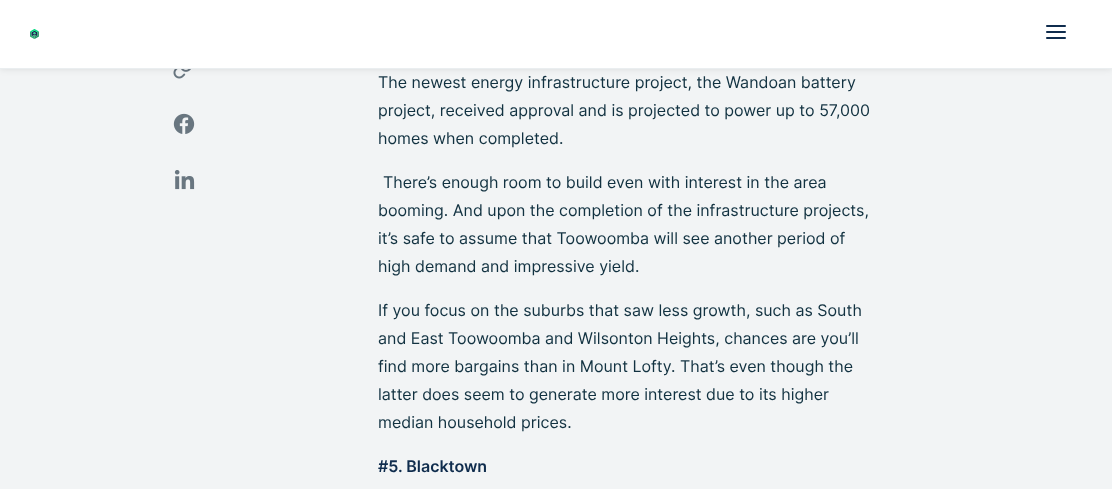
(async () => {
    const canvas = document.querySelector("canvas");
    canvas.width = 1112;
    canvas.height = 489;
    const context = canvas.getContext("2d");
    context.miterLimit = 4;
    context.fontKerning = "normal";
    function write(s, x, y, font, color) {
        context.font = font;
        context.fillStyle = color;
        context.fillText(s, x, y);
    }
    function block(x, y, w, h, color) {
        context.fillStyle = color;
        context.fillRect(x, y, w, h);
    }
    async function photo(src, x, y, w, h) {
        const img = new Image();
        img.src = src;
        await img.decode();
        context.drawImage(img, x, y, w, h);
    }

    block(0, 0, 1112, 489, "rgb(242, 244, 245)");
    await photo("media/3.png", 173, 69, 18, 10);
    context.fillStyle = "rgba(0, 0, 0, 0.1)";
    context.filter = "blur(3.5px)";
    context.beginPath();
    context.rect(0, 0, 1112, 69);
    context.fill();
    context.filter = "none";
    block(0, 0, 1112, 68, "rgb(255, 255, 255)");
    block(0, 68, 1112, 1, "rgb(234, 238, 240)");
    await photo("media/1.png", 30, 29, 9, 10);
    await photo("media/2.png", 1046, 25, 20, 14);
    await photo("media/4.png", 173, 113, 22, 21);
    await photo("media/5.png", 174, 170, 21, 20);
    write("The newest energy infrastructure project, the Wandoan battery", 378, 88, "16px Inter", "rgb(18, 50, 65)");
    write("project, received approval and is projected to power up to 57,000", 378, 116, "16px Inter", "rgb(18, 50, 65)");
    write("homes when completed.", 378, 144, "16px Inter", "rgb(18, 50, 65)");
    write("There’s enough room to build even with interest in the area", 383, 188, "16px Inter", "rgb(18, 50, 65)");
    write("booming. And upon the completion of the infrastructure projects,", 378, 216, "16px Inter", "rgb(18, 50, 65)");
    write("it’s safe to assume that Toowoomba will see another period of", 378, 244, "16px Inter", "rgb(18, 50, 65)");
    write("high demand and impressive yield.", 378, 272, "16px Inter", "rgb(18, 50, 65)");
    write("If you focus on the suburbs that saw less growth, such as South", 378, 316, "16px Inter", "rgb(18, 50, 65)");
    write("and East Toowoomba and Wilsonton Heights, chances are you’ll", 378, 344, "16px Inter", "rgb(18, 50, 65)");
    write("find more bargains than in Mount Lofty. That’s even though the", 378, 372, "16px Inter", "rgb(18, 50, 65)");
    write("latter does seem to generate more interest due to its higher", 378, 400, "16px Inter", "rgb(18, 50, 65)");
    write("median household prices.", 378, 428, "16px Inter", "rgb(18, 50, 65)");
    write("#5. Blacktown", 378, 472, "600 16px Inter", "rgb(15, 44, 77)");
})();
